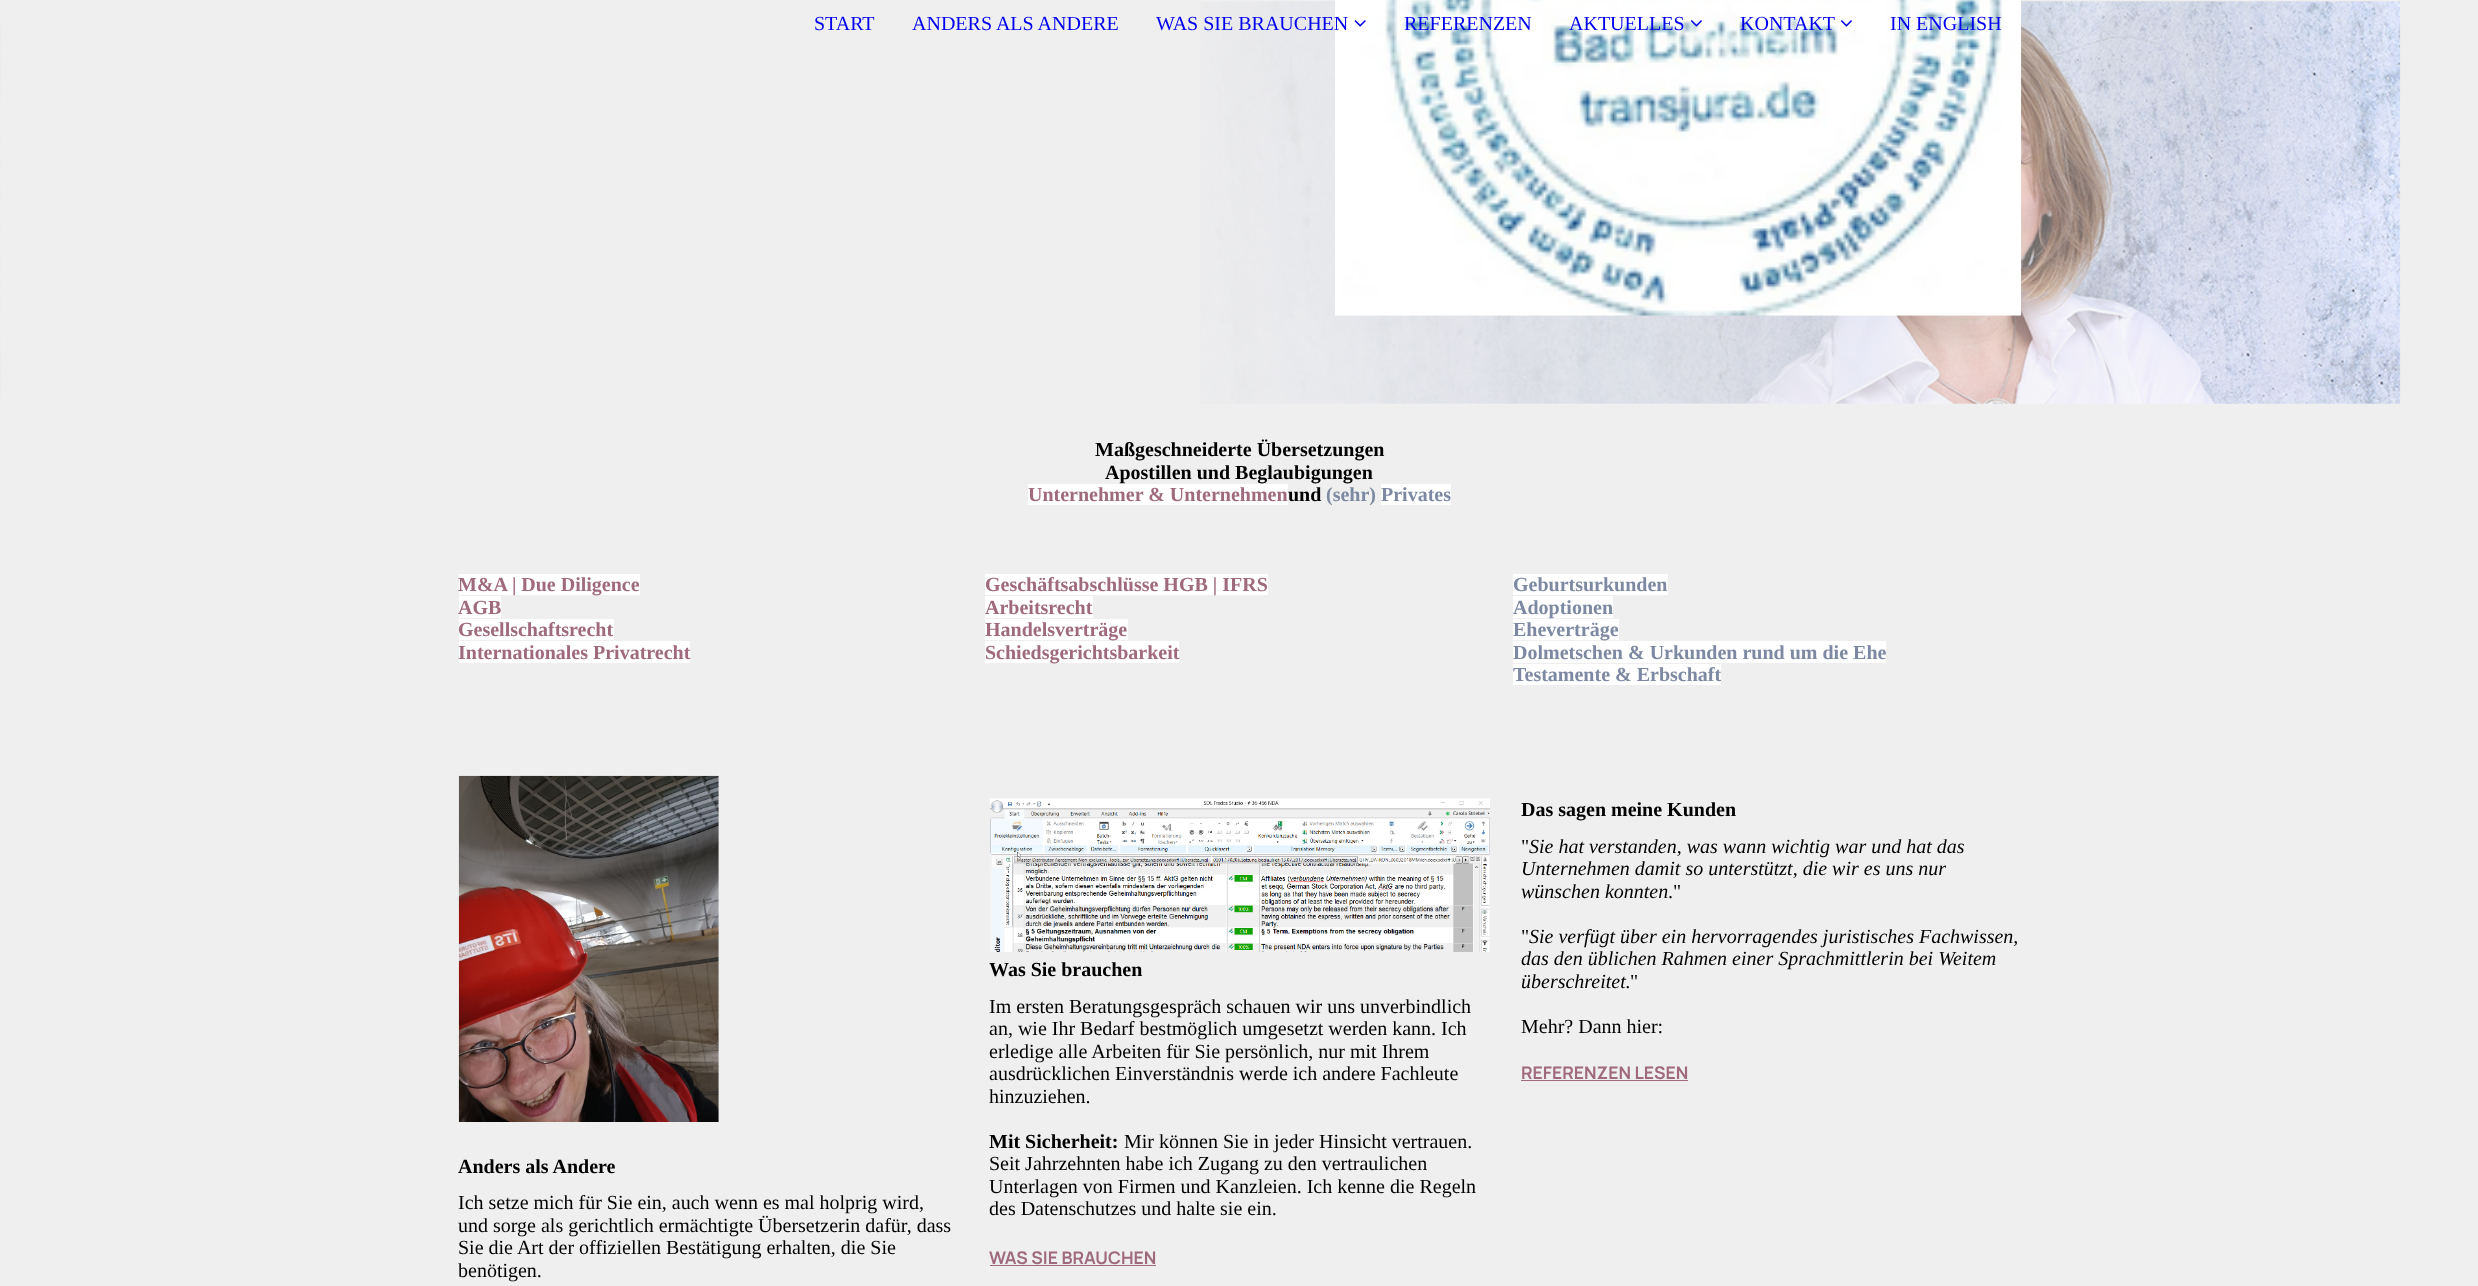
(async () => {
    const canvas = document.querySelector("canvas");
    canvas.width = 2478;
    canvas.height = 1286;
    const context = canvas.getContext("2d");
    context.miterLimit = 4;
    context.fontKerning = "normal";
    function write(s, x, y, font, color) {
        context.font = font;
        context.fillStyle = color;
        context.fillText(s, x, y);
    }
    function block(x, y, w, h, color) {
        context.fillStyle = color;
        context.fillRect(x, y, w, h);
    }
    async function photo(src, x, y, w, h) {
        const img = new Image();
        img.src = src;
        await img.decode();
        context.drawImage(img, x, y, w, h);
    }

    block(0, 0, 2478, 1286, "rgb(255, 255, 255)");
    await photo("media/1.png", 0, 0, 2478, 1286);
    write("START", 814, 30, "20px Liberation Serif", "rgb(0, 0, 238)");
    write("ANDERS ALS ANDERE", 912, 30, "20px Liberation Serif", "rgb(0, 0, 238)");
    await photo("media/5.png", 1335, 0, 687, 316);
    write("WAS SIE BRAUCHEN", 1156, 30, "20px Liberation Serif", "rgb(0, 0, 238)");
    await photo("media/2.png", 1354, 20, 12, 7);
    write("REFERENZEN", 1404, 30, "20px Liberation Serif", "rgb(0, 0, 238)");
    write("AKTUELLES", 1569, 30, "20px Liberation Serif", "rgb(0, 0, 238)");
    await photo("media/3.png", 1690, 20, 12, 7);
    write("KONTAKT", 1740, 30, "20px Liberation Serif", "rgb(0, 0, 238)");
    await photo("media/4.png", 1840, 20, 12, 7);
    write("IN ENGLISH", 1890, 30, "20px Liberation Serif", "rgb(0, 0, 238)");
    write("Maßgeschneiderte Übersetzungen", 1095, 456, "bold 20px Liberation Serif", "rgb(0, 0, 0)");
    write("Apostillen und Beglaubigungen", 1105, 479, "bold 20px Liberation Serif", "rgb(0, 0, 0)");
    block(1028, 484, 260, 21, "rgb(255, 255, 255)");
    write("Unternehmer & Unternehmen", 1028, 501, "bold 20px Liberation Serif", "rgb(160, 106, 126)");
    write("und", 1288, 501, "bold 20px Liberation Serif", "rgb(0, 0, 0)");
    write("(sehr)", 1326, 501, "bold 20px Liberation Serif", "rgb(125, 137, 162)");
    block(1381, 484, 70, 21, "rgb(255, 255, 255)");
    write("Privates", 1381, 501, "bold 20px Liberation Serif", "rgb(125, 137, 162)");
    block(459, 574, 181, 21, "rgb(255, 255, 255)");
    write("M&A | Due Diligence", 458, 591, "bold 20px Liberation Serif", "rgb(160, 106, 126)");
    block(459, 596, 42, 22, "rgb(255, 255, 255)");
    write("AGB", 458, 614, "bold 20px Liberation Serif", "rgb(160, 106, 126)");
    block(459, 619, 155, 21, "rgb(255, 255, 255)");
    write("Gesellschaftsrecht", 458, 636, "bold 20px Liberation Serif", "rgb(160, 106, 126)");
    block(459, 641, 231, 22, "rgb(255, 255, 255)");
    write("Internationales Privatrecht", 458, 659, "bold 20px Liberation Serif", "rgb(160, 106, 126)");
    block(985, 574, 283, 21, "rgb(255, 255, 255)");
    write("Geschäftsabschlüsse HGB | IFRS", 985, 591, "bold 20px Liberation Serif", "rgb(160, 106, 126)");
    block(985, 596, 108, 22, "rgb(255, 255, 255)");
    write("Arbeitsrecht", 985, 614, "bold 20px Liberation Serif", "rgb(160, 106, 126)");
    block(985, 619, 143, 21, "rgb(255, 255, 255)");
    write("Handelsverträge", 985, 636, "bold 20px Liberation Serif", "rgb(160, 106, 126)");
    block(985, 641, 194, 22, "rgb(255, 255, 255)");
    write("Schiedsgerichtsbarkeit", 985, 659, "bold 20px Liberation Serif", "rgb(160, 106, 126)");
    block(1513, 574, 155, 21, "rgb(255, 255, 255)");
    write("Geburtsurkunden", 1513, 591, "bold 20px Liberation Serif", "rgb(125, 137, 162)");
    block(1513, 596, 100, 22, "rgb(255, 255, 255)");
    write("Adoptionen", 1513, 614, "bold 20px Liberation Serif", "rgb(125, 137, 162)");
    block(1513, 619, 106, 21, "rgb(255, 255, 255)");
    write("Eheverträge", 1513, 636, "bold 20px Liberation Serif", "rgb(125, 137, 162)");
    block(1513, 641, 373, 22, "rgb(255, 255, 255)");
    write("Dolmetschen & Urkunden rund um die Ehe", 1513, 659, "bold 20px Liberation Serif", "rgb(125, 137, 162)");
    block(1513, 664, 208, 21, "rgb(255, 255, 255)");
    write("Testamente & Erbschaft", 1513, 681, "bold 20px Liberation Serif", "rgb(125, 137, 162)");
    await photo("media/6.png", 458, 775, 261, 347);
    write("Anders als Andere", 458, 1173, "bold 20px Liberation Serif", "rgb(0, 0, 0)");
    write("Ich setze mich für Sie ein, auch wenn es mal holprig wird,", 458, 1209, "20px Liberation Serif", "rgb(0, 0, 0)");
    write("und sorge als gerichtlich ermächtigte Übersetzerin dafür, dass", 458, 1232, "20px Liberation Serif", "rgb(0, 0, 0)");
    write("Sie die Art der offiziellen Bestätigung erhalten, die Sie", 458, 1254, "20px Liberation Serif", "rgb(0, 0, 0)");
    write("benötigen.", 458, 1277, "20px Liberation Serif", "rgb(0, 0, 0)");
    await photo("media/7.png", 990, 798, 500, 154);
    write("Was Sie brauchen", 989, 976, "bold 20px Liberation Serif", "rgb(0, 0, 0)");
    write("Im ersten Beratungsgespräch schauen wir uns unverbindlich", 989, 1013, "20px Liberation Serif", "rgb(0, 0, 0)");
    write("an, wie Ihr Bedarf bestmöglich umgesetzt werden kann. Ich", 989, 1035, "20px Liberation Serif", "rgb(0, 0, 0)");
    write("erledige alle Arbeiten für Sie persönlich, nur mit Ihrem", 989, 1058, "20px Liberation Serif", "rgb(0, 0, 0)");
    write("ausdrücklichen Einverständnis werde ich andere Fachleute", 989, 1080, "20px Liberation Serif", "rgb(0, 0, 0)");
    write("hinzuziehen.", 989, 1103, "20px Liberation Serif", "rgb(0, 0, 0)");
    write("Mit Sicherheit:", 989, 1148, "bold 20px Liberation Serif", "rgb(0, 0, 0)");
    write("Mir können Sie in jeder Hinsicht vertrauen.", 1124, 1148, "20px Liberation Serif", "rgb(0, 0, 0)");
    write("Seit Jahrzehnten habe ich Zugang zu den vertraulichen", 989, 1170, "20px Liberation Serif", "rgb(0, 0, 0)");
    write("Unterlagen von Firmen und Kanzleien. Ich kenne die Regeln", 989, 1193, "20px Liberation Serif", "rgb(0, 0, 0)");
    write("des Datenschutzes und halte sie ein.", 989, 1215, "20px Liberation Serif", "rgb(0, 0, 0)");
    write("WAS SIE BRAUCHEN", 989, 1264, "bold 17.5px Manrope", "rgb(160, 106, 126)");
    block(990, 1265, 166, 1, "rgb(160, 106, 126)");
    write("Das sagen meine Kunden", 1521, 816, "bold 20px Liberation Serif", "rgb(0, 0, 0)");
    write("\"", 1521, 853, "20px Liberation Serif", "rgb(0, 0, 0)");
    write("Sie hat verstanden, was wann wichtig war und hat das", 1529, 853, "italic 20px Liberation Serif", "rgb(0, 0, 0)");
    write("Unternehmen damit so unterstützt, die wir es uns nur", 1521, 875, "italic 20px Liberation Serif", "rgb(0, 0, 0)");
    write("wünschen konnten", 1521, 898, "italic 20px Liberation Serif", "rgb(0, 0, 0)");
    write(".\"", 1668, 898, "20px Liberation Serif", "rgb(0, 0, 0)");
    write("\"", 1521, 943, "20px Liberation Serif", "rgb(0, 0, 0)");
    write("Sie verfügt über ein hervorragendes juristisches Fachwissen,", 1529, 943, "italic 20px Liberation Serif", "rgb(0, 0, 0)");
    write("das den üblichen Rahmen einer Sprachmittlerin bei Weitem", 1521, 965, "italic 20px Liberation Serif", "rgb(0, 0, 0)");
    write("überschreitet.", 1521, 988, "italic 20px Liberation Serif", "rgb(0, 0, 0)");
    write("\"", 1630, 988, "20px Liberation Serif", "rgb(0, 0, 0)");
    write("Mehr? Dann hier:", 1521, 1033, "20px Liberation Serif", "rgb(0, 0, 0)");
    write("REFERENZEN LESEN", 1521, 1079, "bold 17.5px Manrope", "rgb(160, 106, 126)");
    block(1521, 1080, 167, 1, "rgb(160, 106, 126)");
})();
